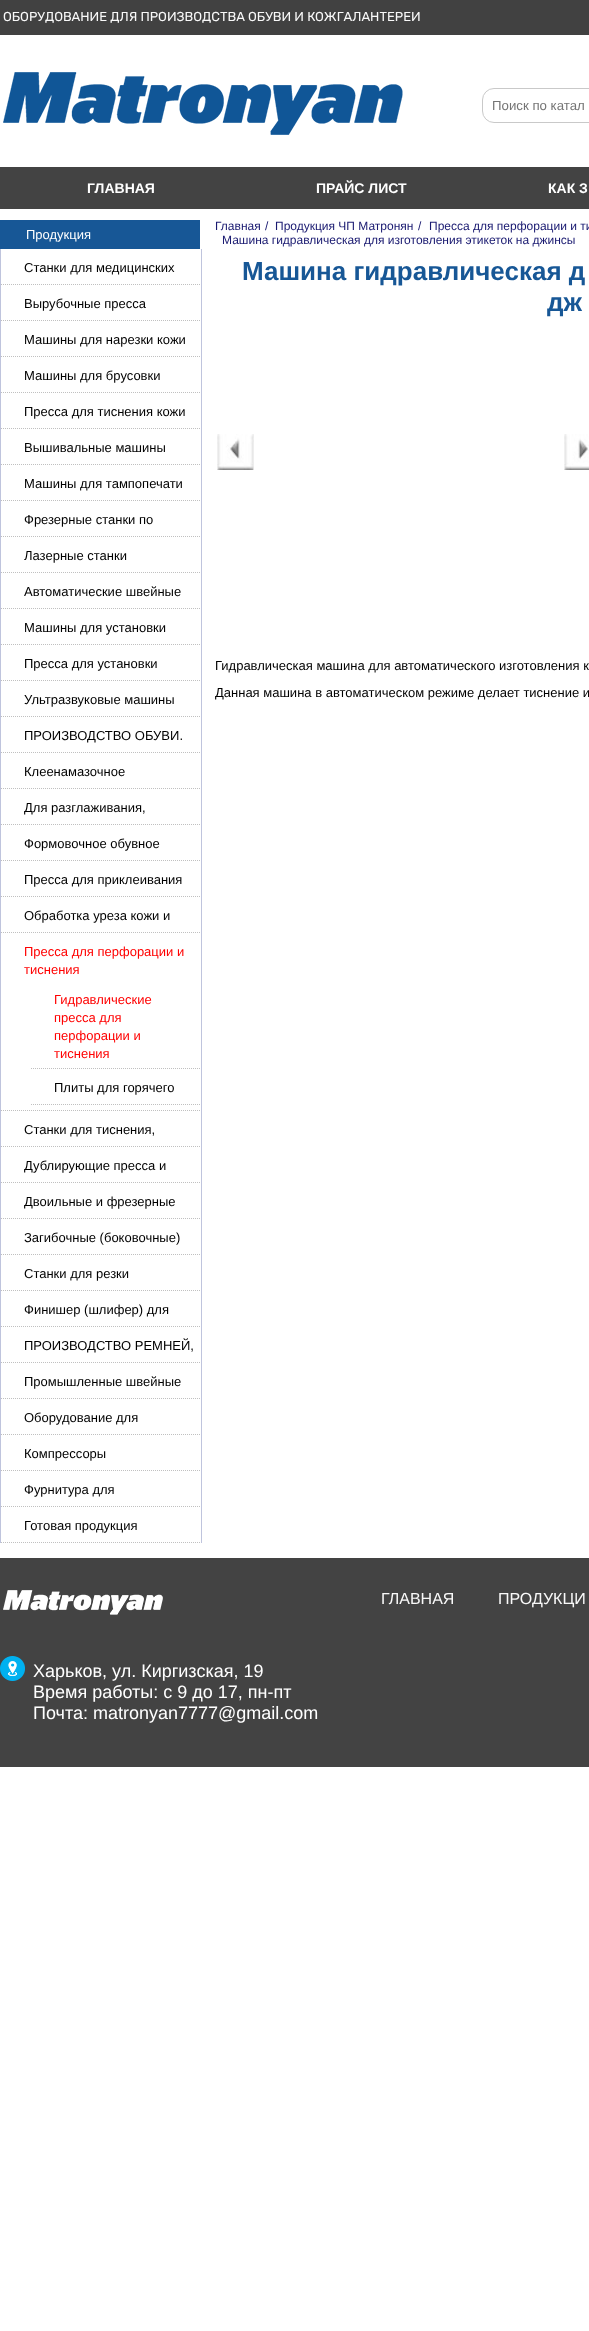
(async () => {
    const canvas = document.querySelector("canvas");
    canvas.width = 589;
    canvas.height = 2331;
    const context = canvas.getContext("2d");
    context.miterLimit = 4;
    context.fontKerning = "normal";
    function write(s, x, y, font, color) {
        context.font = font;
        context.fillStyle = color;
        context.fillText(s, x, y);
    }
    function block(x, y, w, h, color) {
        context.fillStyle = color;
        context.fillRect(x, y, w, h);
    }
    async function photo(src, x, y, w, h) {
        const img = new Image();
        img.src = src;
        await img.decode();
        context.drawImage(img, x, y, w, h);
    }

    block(0, 0, 589, 2331, "rgb(255, 255, 255)");
    block(0, 0, 589, 35, "rgb(65, 65, 65)");
    write("ОБОРУДОВАНИЕ ДЛЯ ПРОИЗВОДСТВА ОБУВИ И КОЖГАЛАНТЕРЕИ", 3, 21, "13px Rubik", "rgb(249, 249, 249)");
    await photo("media/1.png", 3, 72, 400, 63);
    context.beginPath();
    context.roundRect(482.5, 88.5, 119, 34, 11.5);
    context.strokeStyle = "rgb(201, 201, 201)";
    context.stroke();
    write("Поиск по катал", 492, 110, "13.25px Liberation Sans", "rgb(117, 117, 117)");
    block(0, 167, 589, 42, "rgb(67, 67, 67)");
    write("ГЛАВНАЯ", 87, 193, "bold 14px Liberation Sans", "rgb(255, 255, 255)");
    write("ПРАЙС ЛИСТ", 316, 193, "bold 14px Liberation Sans", "rgb(255, 255, 255)");
    write("КАК З", 548, 193, "bold 14px Liberation Sans", "rgb(255, 255, 255)");
    block(0, 220, 200, 29, "rgb(23, 87, 150)");
    write("Продукция", 26, 239, "13px Liberation Sans", "rgb(255, 255, 255)");
    block(201, 249, 1, 1294, "rgb(191, 196, 221)");
    block(0, 249, 1, 1294, "rgb(191, 196, 221)");
    context.beginPath();
    context.moveTo(1, 284.5);
    context.lineTo(201, 284.5);
    context.strokeStyle = "rgb(192, 192, 192)";
    context.setLineDash([1, 1]);
    context.stroke();
    write("Станки для медицинских", 24, 272, "13px Liberation Sans", "rgb(0, 0, 0)");
    context.beginPath();
    context.moveTo(1, 320.5);
    context.lineTo(201, 320.5);
    context.stroke();
    write("Вырубочные пресса", 24, 308, "13px Liberation Sans", "rgb(0, 0, 0)");
    context.beginPath();
    context.moveTo(1, 356.5);
    context.lineTo(201, 356.5);
    context.stroke();
    write("Машины для нарезки кожи", 24, 344, "13px Liberation Sans", "rgb(0, 0, 0)");
    context.beginPath();
    context.moveTo(1, 392.5);
    context.lineTo(201, 392.5);
    context.stroke();
    write("Машины для брусовки", 24, 380, "13px Liberation Sans", "rgb(0, 0, 0)");
    context.beginPath();
    context.moveTo(1, 428.5);
    context.lineTo(201, 428.5);
    context.stroke();
    write("Пресса для тиснения кожи", 24, 416, "13px Liberation Sans", "rgb(0, 0, 0)");
    context.beginPath();
    context.moveTo(1, 464.5);
    context.lineTo(201, 464.5);
    context.stroke();
    write("Вышивальные машины", 24, 452, "13px Liberation Sans", "rgb(0, 0, 0)");
    context.beginPath();
    context.moveTo(1, 500.5);
    context.lineTo(201, 500.5);
    context.stroke();
    write("Машины для тампопечати", 24, 488, "13px Liberation Sans", "rgb(0, 0, 0)");
    context.beginPath();
    context.moveTo(1, 536.5);
    context.lineTo(201, 536.5);
    context.stroke();
    write("Фрезерные станки по", 24, 524, "13px Liberation Sans", "rgb(0, 0, 0)");
    context.beginPath();
    context.moveTo(1, 572.5);
    context.lineTo(201, 572.5);
    context.stroke();
    write("Лазерные станки", 24, 560, "13px Liberation Sans", "rgb(0, 0, 0)");
    context.beginPath();
    context.moveTo(1, 608.5);
    context.lineTo(201, 608.5);
    context.stroke();
    write("Автоматические швейные", 24, 596, "13px Liberation Sans", "rgb(0, 0, 0)");
    context.beginPath();
    context.moveTo(1, 644.5);
    context.lineTo(201, 644.5);
    context.stroke();
    write("Машины для установки", 24, 632, "13px Liberation Sans", "rgb(0, 0, 0)");
    context.beginPath();
    context.moveTo(1, 680.5);
    context.lineTo(201, 680.5);
    context.stroke();
    write("Пресса для установки", 24, 668, "13px Liberation Sans", "rgb(0, 0, 0)");
    context.beginPath();
    context.moveTo(1, 716.5);
    context.lineTo(201, 716.5);
    context.stroke();
    write("Ультразвуковые машины", 24, 704, "13px Liberation Sans", "rgb(0, 0, 0)");
    context.beginPath();
    context.moveTo(1, 752.5);
    context.lineTo(201, 752.5);
    context.stroke();
    write("ПРОИЗВОДСТВО ОБУВИ.", 24, 740, "13px Liberation Sans", "rgb(0, 0, 0)");
    context.beginPath();
    context.moveTo(1, 788.5);
    context.lineTo(201, 788.5);
    context.stroke();
    write("Клеенамазочное", 24, 776, "13px Liberation Sans", "rgb(0, 0, 0)");
    context.beginPath();
    context.moveTo(1, 824.5);
    context.lineTo(201, 824.5);
    context.stroke();
    write("Для разглаживания,", 24, 812, "13px Liberation Sans", "rgb(0, 0, 0)");
    context.beginPath();
    context.moveTo(1, 860.5);
    context.lineTo(201, 860.5);
    context.stroke();
    write("Формовочное обувное", 24, 848, "13px Liberation Sans", "rgb(0, 0, 0)");
    context.beginPath();
    context.moveTo(1, 896.5);
    context.lineTo(201, 896.5);
    context.stroke();
    write("Пресса для приклеивания", 24, 884, "13px Liberation Sans", "rgb(0, 0, 0)");
    context.beginPath();
    context.moveTo(1, 932.5);
    context.lineTo(201, 932.5);
    context.stroke();
    write("Обработка уреза кожи и", 24, 920, "13px Liberation Sans", "rgb(0, 0, 0)");
    context.beginPath();
    context.moveTo(1, 1110.5);
    context.lineTo(201, 1110.5);
    context.stroke();
    write("Пресса для перфорации и", 24, 956, "13px Liberation Sans", "rgb(255, 0, 0)");
    write("тиснения", 24, 974, "13px Liberation Sans", "rgb(255, 0, 0)");
    context.beginPath();
    context.moveTo(31, 1068.5);
    context.lineTo(201, 1068.5);
    context.stroke();
    write("Гидравлические", 54, 1004, "13px Liberation Sans", "rgb(255, 0, 0)");
    write("пресса для", 54, 1022, "13px Liberation Sans", "rgb(255, 0, 0)");
    write("перфорации и", 54, 1040, "13px Liberation Sans", "rgb(255, 0, 0)");
    write("тиснения", 54, 1058, "13px Liberation Sans", "rgb(255, 0, 0)");
    context.beginPath();
    context.moveTo(31, 1104.5);
    context.lineTo(201, 1104.5);
    context.stroke();
    write("Плиты для горячего", 54, 1092, "13px Liberation Sans", "rgb(0, 0, 0)");
    context.beginPath();
    context.moveTo(1, 1146.5);
    context.lineTo(201, 1146.5);
    context.stroke();
    write("Станки для тиснения,", 24, 1134, "13px Liberation Sans", "rgb(0, 0, 0)");
    context.beginPath();
    context.moveTo(1, 1182.5);
    context.lineTo(201, 1182.5);
    context.stroke();
    write("Дублирующие пресса и", 24, 1170, "13px Liberation Sans", "rgb(0, 0, 0)");
    context.beginPath();
    context.moveTo(1, 1218.5);
    context.lineTo(201, 1218.5);
    context.stroke();
    write("Двоильные и фрезерные", 24, 1206, "13px Liberation Sans", "rgb(0, 0, 0)");
    context.beginPath();
    context.moveTo(1, 1254.5);
    context.lineTo(201, 1254.5);
    context.stroke();
    write("Загибочные (боковочные)", 24, 1242, "13px Liberation Sans", "rgb(0, 0, 0)");
    context.beginPath();
    context.moveTo(1, 1290.5);
    context.lineTo(201, 1290.5);
    context.stroke();
    write("Станки для резки", 24, 1278, "13px Liberation Sans", "rgb(0, 0, 0)");
    context.beginPath();
    context.moveTo(1, 1326.5);
    context.lineTo(201, 1326.5);
    context.stroke();
    write("Финишер (шлифер) для", 24, 1314, "13px Liberation Sans", "rgb(0, 0, 0)");
    context.beginPath();
    context.moveTo(1, 1362.5);
    context.lineTo(201, 1362.5);
    context.stroke();
    write("ПРОИЗВОДСТВО РЕМНЕЙ,", 24, 1350, "13px Liberation Sans", "rgb(0, 0, 0)");
    context.beginPath();
    context.moveTo(1, 1398.5);
    context.lineTo(201, 1398.5);
    context.stroke();
    write("Промышленные швейные", 24, 1386, "13px Liberation Sans", "rgb(0, 0, 0)");
    context.beginPath();
    context.moveTo(1, 1434.5);
    context.lineTo(201, 1434.5);
    context.stroke();
    write("Оборудование для", 24, 1422, "13px Liberation Sans", "rgb(0, 0, 0)");
    context.beginPath();
    context.moveTo(1, 1470.5);
    context.lineTo(201, 1470.5);
    context.stroke();
    write("Компрессоры", 24, 1458, "13px Liberation Sans", "rgb(0, 0, 0)");
    context.beginPath();
    context.moveTo(1, 1506.5);
    context.lineTo(201, 1506.5);
    context.stroke();
    write("Фурнитура для", 24, 1494, "13px Liberation Sans", "rgb(0, 0, 0)");
    context.beginPath();
    context.moveTo(1, 1542.5);
    context.lineTo(201, 1542.5);
    context.stroke();
    write("Готовая продукция", 24, 1530, "13px Liberation Sans", "rgb(0, 0, 0)");
    write("Главная", 215, 230, "12px Liberation Sans", "rgb(25, 25, 112)");
    write("/", 265, 230, "12px Liberation Sans", "rgb(25, 25, 112)");
    write("Продукция ЧП Матронян", 275, 230, "12px Liberation Sans", "rgb(25, 25, 112)");
    write("/", 418, 230, "12px Liberation Sans", "rgb(25, 25, 112)");
    write("Пресса для перфорации и ти", 429, 230, "12px Liberation Sans", "rgb(25, 25, 112)");
    write("Машина гидравлическая для изготовления этикеток на джинсы", 222, 244, "12px Liberation Sans", "rgb(25, 25, 112)");
    write("Машина гидравлическая д", 242, 280, "bold 26px Liberation Sans", "rgb(23, 87, 150)");
    write("дж", 547, 311, "bold 26px Liberation Sans", "rgb(23, 87, 150)");
    await photo("media/2.png", 217, 434, 37, 36);
    await photo("media/3.png", 564, 434, 25, 36);
    write("Гидравлическая машина для автоматического изготовления к", 215, 670, "13px Liberation Sans", "rgb(0, 0, 0)");
    write("Данная машина в автоматическом режиме делает тиснение и", 215, 697, "13px Liberation Sans", "rgb(0, 0, 0)");
    block(0, 1558, 589, 209, "rgb(67, 67, 67)");
    await photo("media/4.png", 3, 1590, 160, 25);
    write("ГЛАВНАЯ", 381, 1604, "16px Liberation Sans", "rgb(249, 249, 249)");
    write("ПРОДУКЦИ", 498, 1604, "16px Liberation Sans", "rgb(249, 249, 249)");
    await photo("media/5.png", 0, 1656, 25, 25);
    write("Харьков, ул. Киргизская, 19", 33, 1677, "18px Liberation Sans", "rgb(255, 255, 255)");
    write("Время работы: с 9 до 17, пн-пт", 33, 1698, "18px Liberation Sans", "rgb(255, 255, 255)");
    write("Почта: matronyan7777@gmail.com", 33, 1719, "18px Liberation Sans", "rgb(255, 255, 255)");
})();
